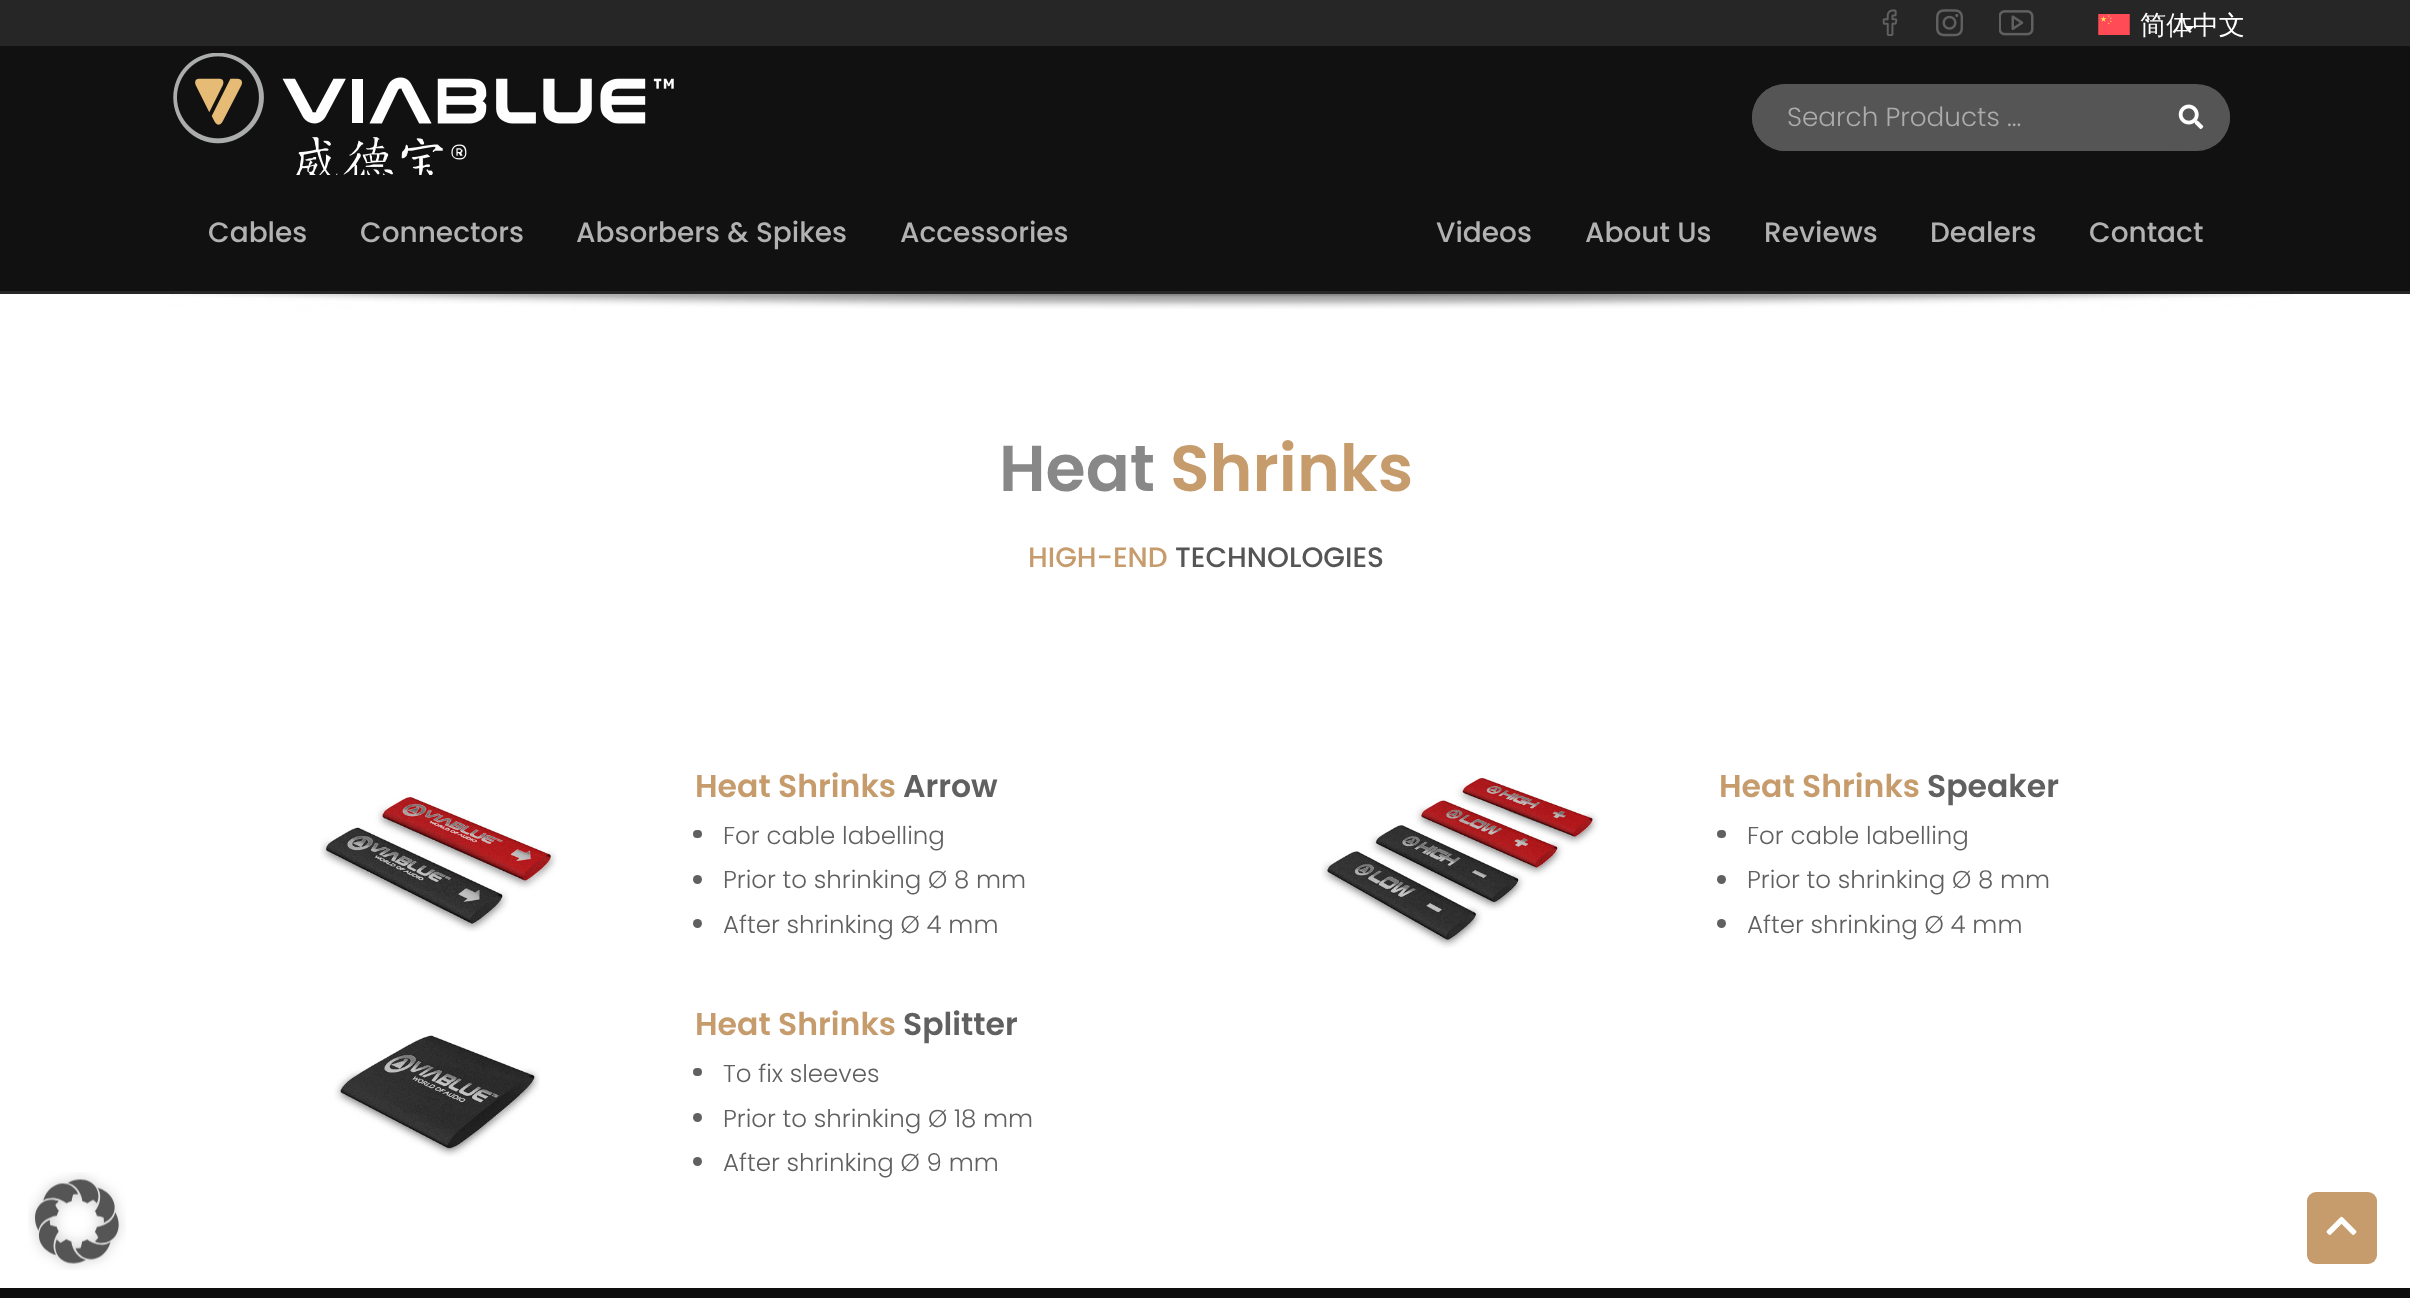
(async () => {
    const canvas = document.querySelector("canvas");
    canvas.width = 2410;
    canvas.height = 1298;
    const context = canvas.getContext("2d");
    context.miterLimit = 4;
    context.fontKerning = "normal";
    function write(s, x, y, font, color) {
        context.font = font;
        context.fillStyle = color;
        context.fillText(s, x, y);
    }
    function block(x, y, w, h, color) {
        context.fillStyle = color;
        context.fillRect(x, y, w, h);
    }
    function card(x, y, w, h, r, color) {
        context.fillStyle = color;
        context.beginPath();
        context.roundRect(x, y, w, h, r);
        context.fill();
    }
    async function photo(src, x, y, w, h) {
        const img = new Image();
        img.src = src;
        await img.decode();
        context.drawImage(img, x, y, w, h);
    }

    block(0, 0, 2410, 1298, "rgb(255, 255, 255)");
    block(0, 0, 2410, 46, "rgb(38, 38, 38)");
    await photo("media/1.png", 1882, 9, 16, 27);
    await photo("media/2.png", 1936, 9, 27, 28);
    await photo("media/3.png", 1999, 10, 35, 26);
    await photo("media/4.png", 2098, 14, 32, 21);
    write("简体中文", 2140, 34, "500 26.25px WenQuanYi Zen Hei", "rgb(255, 255, 255)");
    context.beginPath();
    context.moveTo(2184, 26);
    context.lineTo(2194.5, 26);
    context.lineTo(2189, 31.5);
    context.closePath();
    context.fill();
    block(0, 46, 2410, 245, "rgb(17, 17, 17)");
    await photo("media/5.png", 173, 53, 501, 122);
    card(1752, 84, 478, 67, 33.5, "rgb(85, 85, 85)");
    context.beginPath();
    context.roundRect(1752, 84, 383, 67, [33.5, 0, 0, 33.5]);
    context.fill();
    write("Search Products ...", 1787, 126, "300 26.25px Poppins", "rgb(172, 172, 172)");
    card(2153, 88, 77, 59, 29.5, "rgb(85, 85, 85)");
    await photo("media/6.png", 2178, 104, 26, 25);
    block(0, 291, 2410, 3, "rgb(38, 38, 38)");
    write("Cables", 208, 242, "500 28px Poppins", "rgb(178, 178, 178)");
    write("Connectors", 360, 242, "500 28px Poppins", "rgb(178, 178, 178)");
    write("Absorbers & Spikes", 576, 242, "500 28px Poppins", "rgb(178, 178, 178)");
    write("Accessories", 900, 242, "500 28px Poppins", "rgb(178, 178, 178)");
    write("Videos", 1436, 242, "500 28px Poppins", "rgb(178, 178, 178)");
    write("About Us", 1585, 242, "500 28px Poppins", "rgb(178, 178, 178)");
    write("Reviews", 1764, 242, "500 28px Poppins", "rgb(178, 178, 178)");
    write("Dealers", 1930, 242, "500 28px Poppins", "rgb(178, 178, 178)");
    write("Contact", 2089, 242, "500 28px Poppins", "rgb(178, 178, 178)");
    await photo("media/7.png", 170, 294, 2123, 15);
    write("Heat", 999, 491, "600 65px Poppins", "rgb(136, 136, 136)");
    write("Shrinks", 1170, 491, "600 65px Poppins", "rgb(198, 156, 109)");
    write("HIGH-END", 1028, 567, "500 28px Poppins", "rgb(198, 156, 109)");
    write("TECHNOLOGIES", 1175, 567, "500 28px Poppins", "rgb(85, 85, 85)");
    await photo("media/8.png", 320, 794, 237, 138);
    write("Heat Shrinks", 695, 797, "600 31.5px Poppins", "rgb(198, 156, 109)");
    write("Arrow", 903, 797, "600 31.5px Poppins", "rgb(96, 96, 96)");
    card(693, 830, 9, 8, 4, "rgb(96, 96, 96)");
    write("For cable labelling", 723, 844, "300 24.5px Poppins", "rgb(96, 96, 96)");
    context.beginPath();
    context.arc(697.5, 879.5, 4.5, 0, Math.PI * 2);
    context.fill();
    write("Prior to shrinking Ø 8 mm", 723, 888, "300 24.5px Poppins", "rgb(96, 96, 96)");
    context.beginPath();
    context.arc(697.5, 923.5, 4.5, 0, Math.PI * 2);
    context.fill();
    write("After shrinking Ø 4 mm", 723, 933, "300 24.5px Poppins", "rgb(96, 96, 96)");
    await photo("media/9.png", 1321, 774, 278, 174);
    write("Heat Shrinks", 1719, 797, "600 31.5px Poppins", "rgb(198, 156, 109)");
    write("Speaker", 1927, 797, "600 31.5px Poppins", "rgb(96, 96, 96)");
    card(1717, 830, 9, 8, 4, "rgb(96, 96, 96)");
    write("For cable labelling", 1747, 844, "300 24.5px Poppins", "rgb(96, 96, 96)");
    context.beginPath();
    context.arc(1721.5, 879.5, 4.5, 0, Math.PI * 2);
    context.fill();
    write("Prior to shrinking Ø 8 mm", 1747, 888, "300 24.5px Poppins", "rgb(96, 96, 96)");
    context.beginPath();
    context.arc(1721.5, 923.5, 4.5, 0, Math.PI * 2);
    context.fill();
    write("After shrinking Ø 4 mm", 1747, 933, "300 24.5px Poppins", "rgb(96, 96, 96)");
    await photo("media/10.png", 334, 1035, 206, 122);
    write("Heat Shrinks", 695, 1035, "600 31.5px Poppins", "rgb(198, 156, 109)");
    write("Splitter", 903, 1035, "600 31.5px Poppins", "rgb(96, 96, 96)");
    card(693, 1068, 9, 8, 4, "rgb(96, 96, 96)");
    write("To fix sleeves", 723, 1082, "300 24.5px Poppins", "rgb(96, 96, 96)");
    context.beginPath();
    context.arc(697.5, 1117.5, 4.5, 0, Math.PI * 2);
    context.fill();
    write("Prior to shrinking Ø 18 mm", 723, 1127, "300 24.5px Poppins", "rgb(96, 96, 96)");
    context.beginPath();
    context.arc(697.5, 1161.5, 4.5, 0, Math.PI * 2);
    context.fill();
    write("After shrinking Ø 9 mm", 723, 1171, "300 24.5px Poppins", "rgb(96, 96, 96)");
    await photo("media/11.png", 28, 1172, 98, 98);
    card(2307, 1192, 70, 72, 9, "rgb(198, 156, 109)");
    await photo("media/12.png", 2326, 1216, 31, 19);
    block(0, 1288, 2410, 10, "rgb(14, 14, 14)");
})();
